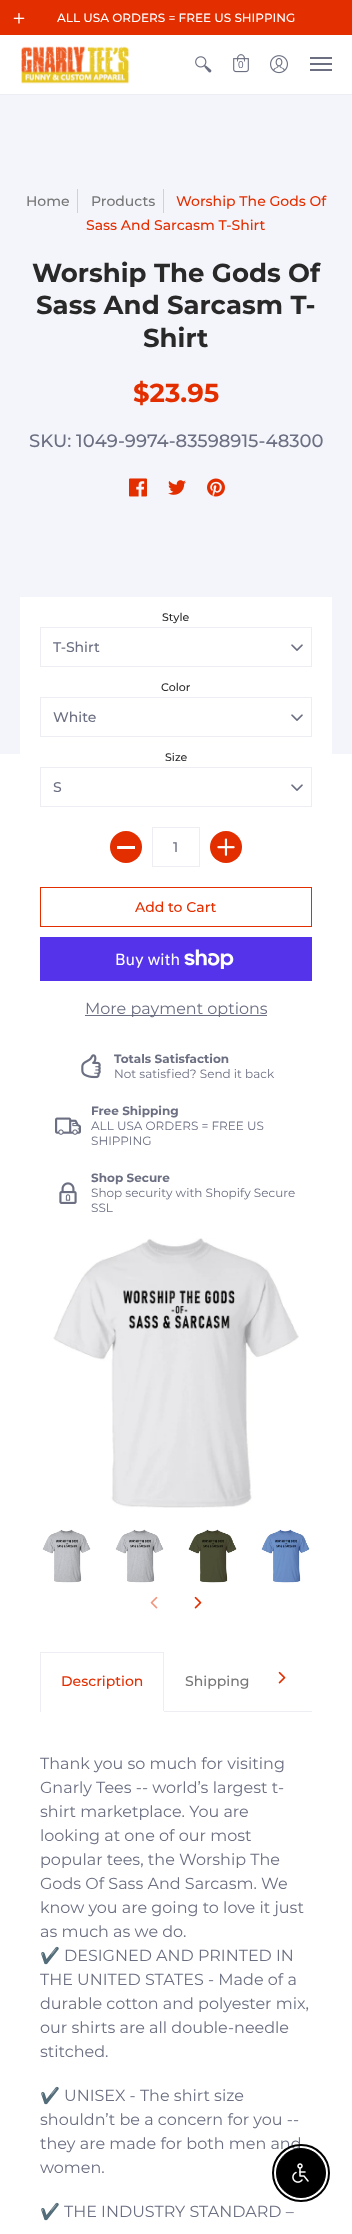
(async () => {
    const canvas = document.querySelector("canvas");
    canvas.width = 352;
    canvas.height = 2234;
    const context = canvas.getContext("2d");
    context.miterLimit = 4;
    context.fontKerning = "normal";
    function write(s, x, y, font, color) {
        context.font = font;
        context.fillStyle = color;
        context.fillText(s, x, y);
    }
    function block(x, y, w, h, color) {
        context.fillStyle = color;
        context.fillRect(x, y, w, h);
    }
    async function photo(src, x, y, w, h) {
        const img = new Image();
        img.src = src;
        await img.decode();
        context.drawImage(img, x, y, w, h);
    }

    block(0, 0, 352, 2234, "rgb(255, 255, 255)");
    block(0, 0, 352, 35, "rgb(227, 46, 0)");
    await photo("media/1.png", 13, 13, 12, 11);
    write("ALL USA ORDERS = FREE US SHIPPING", 57, 22, "500 12px Montserrat", "rgb(255, 255, 255)");
    block(0, 94, 352, 1, "rgb(237, 238, 244)");
    await photo("media/2.png", 21, 46, 109, 38);
    await photo("media/3.png", 195, 56, 17, 17);
    await photo("media/4.png", 233, 54, 16, 19);
    block(238, 60, 6, 10, "rgb(255, 255, 255)");
    write("0", 238, 68, "10px Liberation Sans", "rgb(107, 111, 129)");
    await photo("media/5.png", 270, 55, 18, 19);
    block(310, 57, 22, 2, "rgb(107, 111, 129)");
    block(310, 69, 22, 2, "rgb(107, 111, 129)");
    block(310, 63, 22, 2, "rgb(107, 111, 129)");
    block(0, 95, 352, 659, "rgb(244, 245, 250)");
    write("Home", 26, 206, "500 14px Montserrat", "rgb(118, 118, 118)");
    block(77, 189, 1, 24, "rgb(205, 208, 225)");
    write("Products", 91, 206, "500 14px Montserrat", "rgb(118, 118, 118)");
    block(163, 189, 1, 24, "rgb(205, 208, 225)");
    write("Worship The Gods Of", 176, 206, "500 14px Montserrat", "rgb(227, 46, 0)");
    write("Sass And Sarcasm T-Shirt", 86, 230, "500 14px Montserrat", "rgb(227, 46, 0)");
    write("Worship The Gods Of", 32, 282, "bold 26px Montserrat", "rgb(41, 41, 41)");
    write("Sass And Sarcasm T-", 36, 314, "bold 26px Montserrat", "rgb(41, 41, 41)");
    write("Shirt", 143, 347, "bold 26px Montserrat", "rgb(41, 41, 41)");
    write("$23.95", 133, 402, "bold 26px Montserrat", "rgb(227, 46, 0)");
    write("SKU: 1049-9974-83598915-48300", 29, 447, "500 18px Montserrat", "rgb(107, 111, 129)");
    await photo("media/6.png", 129, 478, 18, 19);
    await photo("media/7.png", 168, 480, 18, 15);
    await photo("media/8.png", 207, 478, 18, 19);
    block(20, 597, 312, 157, "rgb(255, 255, 255)");
    write("Style", 162, 621, "500 11px Montserrat", "rgb(41, 41, 41)");
    await photo("media/9.png", 291, 644, 12, 7);
    context.strokeStyle = "rgb(237, 238, 244)";
    context.strokeRect(40.5, 627.5, 271, 39);
    write("T-Shirt", 53, 652, "500 14px Montserrat", "rgb(107, 111, 129)");
    write("Color", 161, 691, "500 11px Montserrat", "rgb(41, 41, 41)");
    await photo("media/9.png", 291, 714, 12, 7);
    context.strokeRect(40.5, 697.5, 271, 39);
    write("White", 53, 722, "500 14px Montserrat", "rgb(107, 111, 129)");
    write("Size", 165, 761, "500 11px Montserrat", "rgb(41, 41, 41)");
    await photo("media/9.png", 291, 784, 12, 7);
    context.strokeRect(40.5, 767.5, 271, 39);
    write("S", 53, 792, "500 14px Montserrat", "rgb(107, 111, 129)");
    context.fillStyle = "rgb(227, 46, 0)";
    context.beginPath();
    context.arc(126, 847, 16, 0, Math.PI * 2);
    context.fill();
    block(117, 846, 18, 3, "rgb(255, 255, 255)");
    context.strokeRect(152.5, 827.5, 47, 39);
    write("1", 173, 852, "500 14px Montserrat", "rgb(107, 111, 129)");
    context.fillStyle = "rgb(227, 46, 0)";
    context.beginPath();
    context.arc(226, 847, 16, 0, Math.PI * 2);
    context.fill();
    await photo("media/10.png", 217, 838, 18, 18);
    context.strokeStyle = "rgb(227, 46, 0)";
    context.strokeRect(40.5, 887.5, 271, 39);
    write("Add to Cart", 135, 912, "500 14px Montserrat", "rgb(227, 46, 0)");
    block(40, 937, 272, 44, "rgb(84, 51, 235)");
    write("Buy with", 115, 965, "16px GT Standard", "rgb(255, 255, 255)");
    await photo("media/11.png", 184, 949, 50, 20);
    block(85, 1015, 182, 1, "rgb(107, 111, 129)");
    write("More payment options", 85, 1014, "16px Montserrat", "rgb(107, 111, 129)");
    await photo("media/12.png", 81, 1054, 20, 25);
    write("Totals Satisfaction", 114, 1063, "bold 12px Montserrat", "rgb(107, 111, 129)");
    write("Not satisfied? Send it back", 114, 1078, "12px Montserrat", "rgb(107, 111, 129)");
    await photo("media/13.png", 55, 1117, 26, 18);
    write("Free Shipping", 91, 1115, "bold 12px Montserrat", "rgb(107, 111, 129)");
    write("ALL USA ORDERS = FREE US", 91, 1130, "12px Montserrat", "rgb(107, 111, 129)");
    write("SHIPPING", 91, 1145, "12px Montserrat", "rgb(107, 111, 129)");
    await photo("media/14.png", 59, 1182, 18, 22);
    write("Shop Secure", 91, 1182, "bold 12px Montserrat", "rgb(107, 111, 129)");
    write("Shop security with Shopify Secure", 91, 1197, "12px Montserrat", "rgb(107, 111, 129)");
    write("SSL", 91, 1212, "12px Montserrat", "rgb(107, 111, 129)");
    await photo("media/15.png", 53, 1238, 246, 270);
    await photo("media/16.png", 42, 1529, 49, 54);
    await photo("media/17.png", 115, 1529, 49, 54);
    await photo("media/18.png", 188, 1529, 49, 54);
    await photo("media/19.png", 261, 1529, 49, 54);
    await photo("media/20.png", 150, 1596, 8, 13);
    await photo("media/21.png", 194, 1596, 8, 13);
    block(40, 1652, 124, 1, "rgb(237, 238, 244)");
    block(163, 1652, 1, 60, "rgb(237, 238, 244)");
    block(163, 1711, 1, 1, "rgb(255, 255, 255)");
    block(40, 1652, 1, 60, "rgb(237, 238, 244)");
    write("Description", 61, 1686, "500 14px Montserrat", "rgb(227, 46, 0)");
    write("Shipping", 185, 1686, "500 14px Montserrat", "rgb(118, 118, 118)");
    await photo("media/21.png", 278, 1671, 8, 13);
    block(164, 1711, 148, 1, "rgb(237, 238, 244)");
    write("Thank you so much for visiting", 40, 1769, "16px Montserrat", "rgb(107, 111, 129)");
    write("Gnarly Tees -- world’s largest t-", 40, 1793, "16px Montserrat", "rgb(107, 111, 129)");
    write("shirt marketplace. You are", 40, 1817, "16px Montserrat", "rgb(107, 111, 129)");
    write("looking at one of our most", 40, 1841, "16px Montserrat", "rgb(107, 111, 129)");
    write("popular tees, the Worship The", 40, 1865, "16px Montserrat", "rgb(107, 111, 129)");
    write("Gods Of Sass And Sarcasm. We", 40, 1889, "16px Montserrat", "rgb(107, 111, 129)");
    write("know you are going to love it just", 40, 1913, "16px Montserrat", "rgb(107, 111, 129)");
    write("as much as we do.", 40, 1937, "16px Montserrat", "rgb(107, 111, 129)");
    write("✔️", 40, 1961, "16px Noto Color Emoji", "rgb(107, 111, 129)");
    write("DESIGNED AND PRINTED IN", 64, 1961, "16px Montserrat", "rgb(107, 111, 129)");
    write("THE UNITED STATES - Made of a", 40, 1985, "16px Montserrat", "rgb(107, 111, 129)");
    write("durable cotton and polyester mix,", 40, 2009, "16px Montserrat", "rgb(107, 111, 129)");
    write("our shirts are all double-needle", 40, 2033, "16px Montserrat", "rgb(107, 111, 129)");
    write("stitched.", 40, 2057, "16px Montserrat", "rgb(107, 111, 129)");
    write("✔️", 40, 2101, "16px Noto Color Emoji", "rgb(107, 111, 129)");
    write("UNISEX - The shirt size", 64, 2101, "16px Montserrat", "rgb(107, 111, 129)");
    write("shouldn’t be a concern for you --", 40, 2125, "16px Montserrat", "rgb(107, 111, 129)");
    write("they are made for both men and", 40, 2149, "16px Montserrat", "rgb(107, 111, 129)");
    write("women.", 40, 2173, "16px Montserrat", "rgb(107, 111, 129)");
    write("✔️", 40, 2217, "16px Noto Color Emoji", "rgb(107, 111, 129)");
    write("THE INDUSTRY STANDARD –", 64, 2217, "16px Montserrat", "rgb(107, 111, 129)");
    context.beginPath();
    context.arc(301, 2173, 28, 0, Math.PI * 2);
    context.strokeStyle = "rgb(0, 0, 0)";
    context.lineWidth = 2;
    context.stroke();
    context.fillStyle = "rgb(0, 0, 0)";
    context.beginPath();
    context.arc(301, 2173, 24.5, 0, Math.PI * 2);
    context.fill();
    context.lineWidth = 1;
    context.stroke();
    await photo("media/22.png", 292, 2163, 17, 20);
})();
